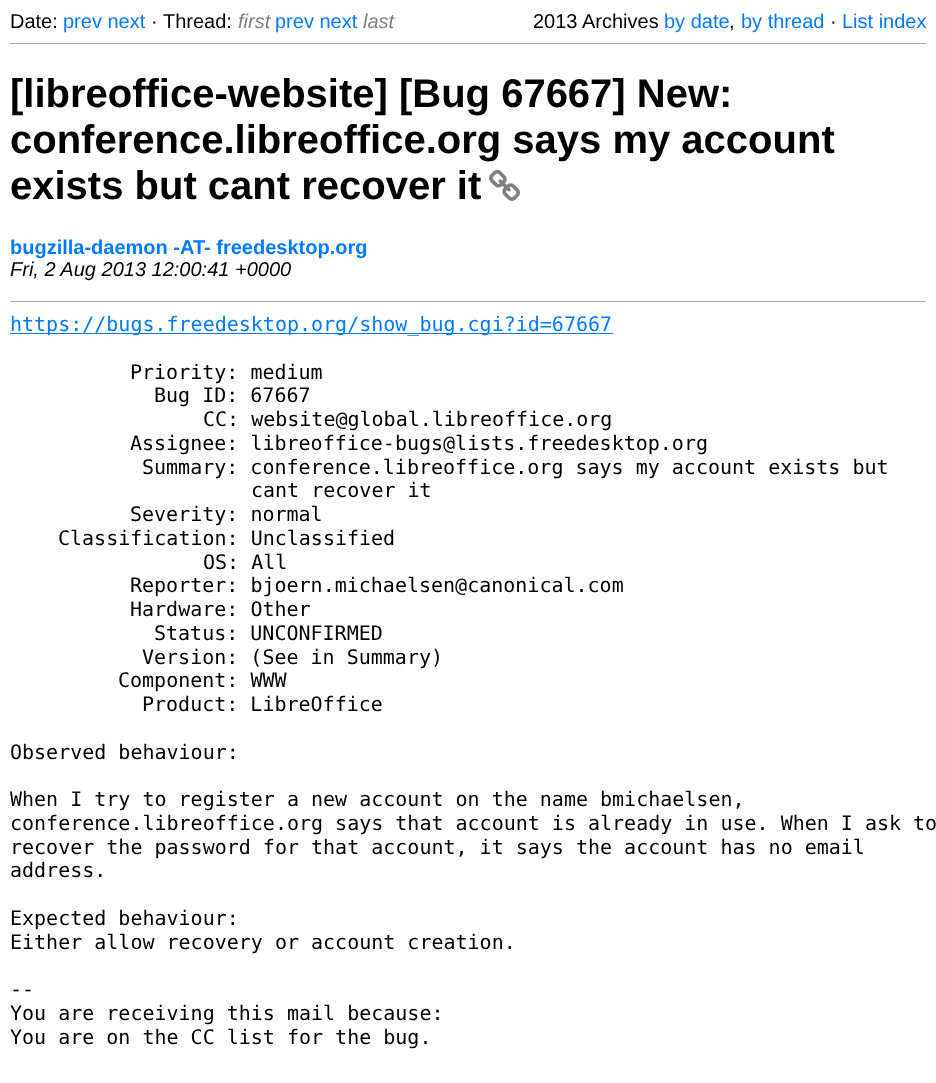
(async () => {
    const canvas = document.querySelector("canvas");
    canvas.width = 936;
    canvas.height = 1083;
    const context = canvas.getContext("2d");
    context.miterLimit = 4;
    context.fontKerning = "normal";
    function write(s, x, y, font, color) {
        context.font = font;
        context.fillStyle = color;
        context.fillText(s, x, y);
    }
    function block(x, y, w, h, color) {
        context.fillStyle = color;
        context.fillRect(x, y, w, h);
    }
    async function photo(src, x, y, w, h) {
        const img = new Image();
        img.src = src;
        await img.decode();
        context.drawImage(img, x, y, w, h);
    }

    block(0, 0, 936, 1083, "rgb(255, 255, 255)");
    write("Date:", 10, 28, "20px Liberation Sans", "rgb(0, 0, 0)");
    write("prev next", 63, 28, "20px Liberation Sans", "rgb(0, 123, 255)");
    write("·", 151, 28, "20px Liberation Sans", "rgb(0, 0, 0)");
    write("Thread:", 163, 28, "20px Liberation Sans", "rgb(0, 0, 0)");
    write("first", 238, 28, "italic 20px Liberation Sans", "rgb(128, 128, 128)");
    write("prev next", 275, 28, "20px Liberation Sans", "rgb(0, 123, 255)");
    write("last", 363, 28, "italic 20px Liberation Sans", "rgb(128, 128, 128)");
    write("2013 Archives", 533, 28, "20px Liberation Sans", "rgb(0, 0, 0)");
    write("by date", 664, 28, "20px Liberation Sans", "rgb(0, 123, 255)");
    write("by thread", 741, 28, "20px Liberation Sans", "rgb(0, 123, 255)");
    write("·", 830, 28, "20px Liberation Sans", "rgb(0, 0, 0)");
    write("List index", 842, 28, "20px Liberation Sans", "rgb(0, 123, 255)");
    write(",", 729, 28, "20px Liberation Sans", "rgb(0, 0, 0)");
    block(10, 43, 916, 1, "rgb(166, 166, 166)");
    write("[libreoffice-website] [Bug 67667] New:", 10, 107, "bold 40px Liberation Sans", "rgb(0, 0, 0)");
    write("conference.libreoffice.org says my account", 10, 153, "bold 40px Liberation Sans", "rgb(0, 0, 0)");
    write("exists but cant recover it", 10, 199, "bold 40px Liberation Sans", "rgb(0, 0, 0)");
    await photo("media/1.png", 489, 169, 31, 32);
    write("bugzilla-daemon -AT- freedesktop.org", 10, 254, "bold 20px Liberation Sans", "rgb(0, 123, 255)");
    write("Fri, 2 Aug 2013 12:00:41 +0000", 10, 276, "italic 20px Liberation Sans", "rgb(0, 0, 0)");
    block(10, 301, 916, 1, "rgb(166, 166, 166)");
    block(10, 333, 603, 1, "rgb(0, 123, 255)");
    write("https://bugs.freedesktop.org/show_bug.cgi?id=67667", 10, 331, "20px DejaVu Sans Mono", "rgb(0, 123, 255)");
    write("Priority: medium", 130, 379, "20px DejaVu Sans Mono", "rgb(0, 0, 0)");
    write("Bug ID: 67667", 154, 402, "20px DejaVu Sans Mono", "rgb(0, 0, 0)");
    write("CC: website@global.libreoffice.org", 203, 426, "20px DejaVu Sans Mono", "rgb(0, 0, 0)");
    write("Assignee: libreoffice-bugs@lists.freedesktop.org", 130, 450, "20px DejaVu Sans Mono", "rgb(0, 0, 0)");
    write("Summary: conference.libreoffice.org says my account exists but", 142, 474, "20px DejaVu Sans Mono", "rgb(0, 0, 0)");
    write("cant recover it", 251, 497, "20px DejaVu Sans Mono", "rgb(0, 0, 0)");
    write("Severity: normal", 130, 521, "20px DejaVu Sans Mono", "rgb(0, 0, 0)");
    write("Classification: Unclassified", 58, 545, "20px DejaVu Sans Mono", "rgb(0, 0, 0)");
    write("OS: All", 203, 569, "20px DejaVu Sans Mono", "rgb(0, 0, 0)");
    write("Reporter: bjoern.michaelsen@canonical.com", 130, 592, "20px DejaVu Sans Mono", "rgb(0, 0, 0)");
    write("Hardware: Other", 130, 616, "20px DejaVu Sans Mono", "rgb(0, 0, 0)");
    write("Status: UNCONFIRMED", 154, 640, "20px DejaVu Sans Mono", "rgb(0, 0, 0)");
    write("Version: (See in Summary)", 142, 664, "20px DejaVu Sans Mono", "rgb(0, 0, 0)");
    write("Component: WWW", 118, 687, "20px DejaVu Sans Mono", "rgb(0, 0, 0)");
    write("Product: LibreOffice", 142, 711, "20px DejaVu Sans Mono", "rgb(0, 0, 0)");
    write("Observed behaviour:", 10, 759, "20px DejaVu Sans Mono", "rgb(0, 0, 0)");
    write("When I try to register a new account on the name bmichaelsen,", 10, 806, "20px DejaVu Sans Mono", "rgb(0, 0, 0)");
    write("conference.libreoffice.org says that account is already in use. When I ask to", 10, 830, "20px DejaVu Sans Mono", "rgb(0, 0, 0)");
    write("recover the password for that account, it says the account has no email", 10, 854, "20px DejaVu Sans Mono", "rgb(0, 0, 0)");
    write("address.", 10, 877, "20px DejaVu Sans Mono", "rgb(0, 0, 0)");
    write("Expected behaviour:", 10, 925, "20px DejaVu Sans Mono", "rgb(0, 0, 0)");
    write("Either allow recovery or account creation.", 10, 949, "20px DejaVu Sans Mono", "rgb(0, 0, 0)");
    write("--", 10, 996, "20px DejaVu Sans Mono", "rgb(0, 0, 0)");
    write("You are receiving this mail because:", 10, 1020, "20px DejaVu Sans Mono", "rgb(0, 0, 0)");
    write("You are on the CC list for the bug.", 10, 1044, "20px DejaVu Sans Mono", "rgb(0, 0, 0)");
})();
